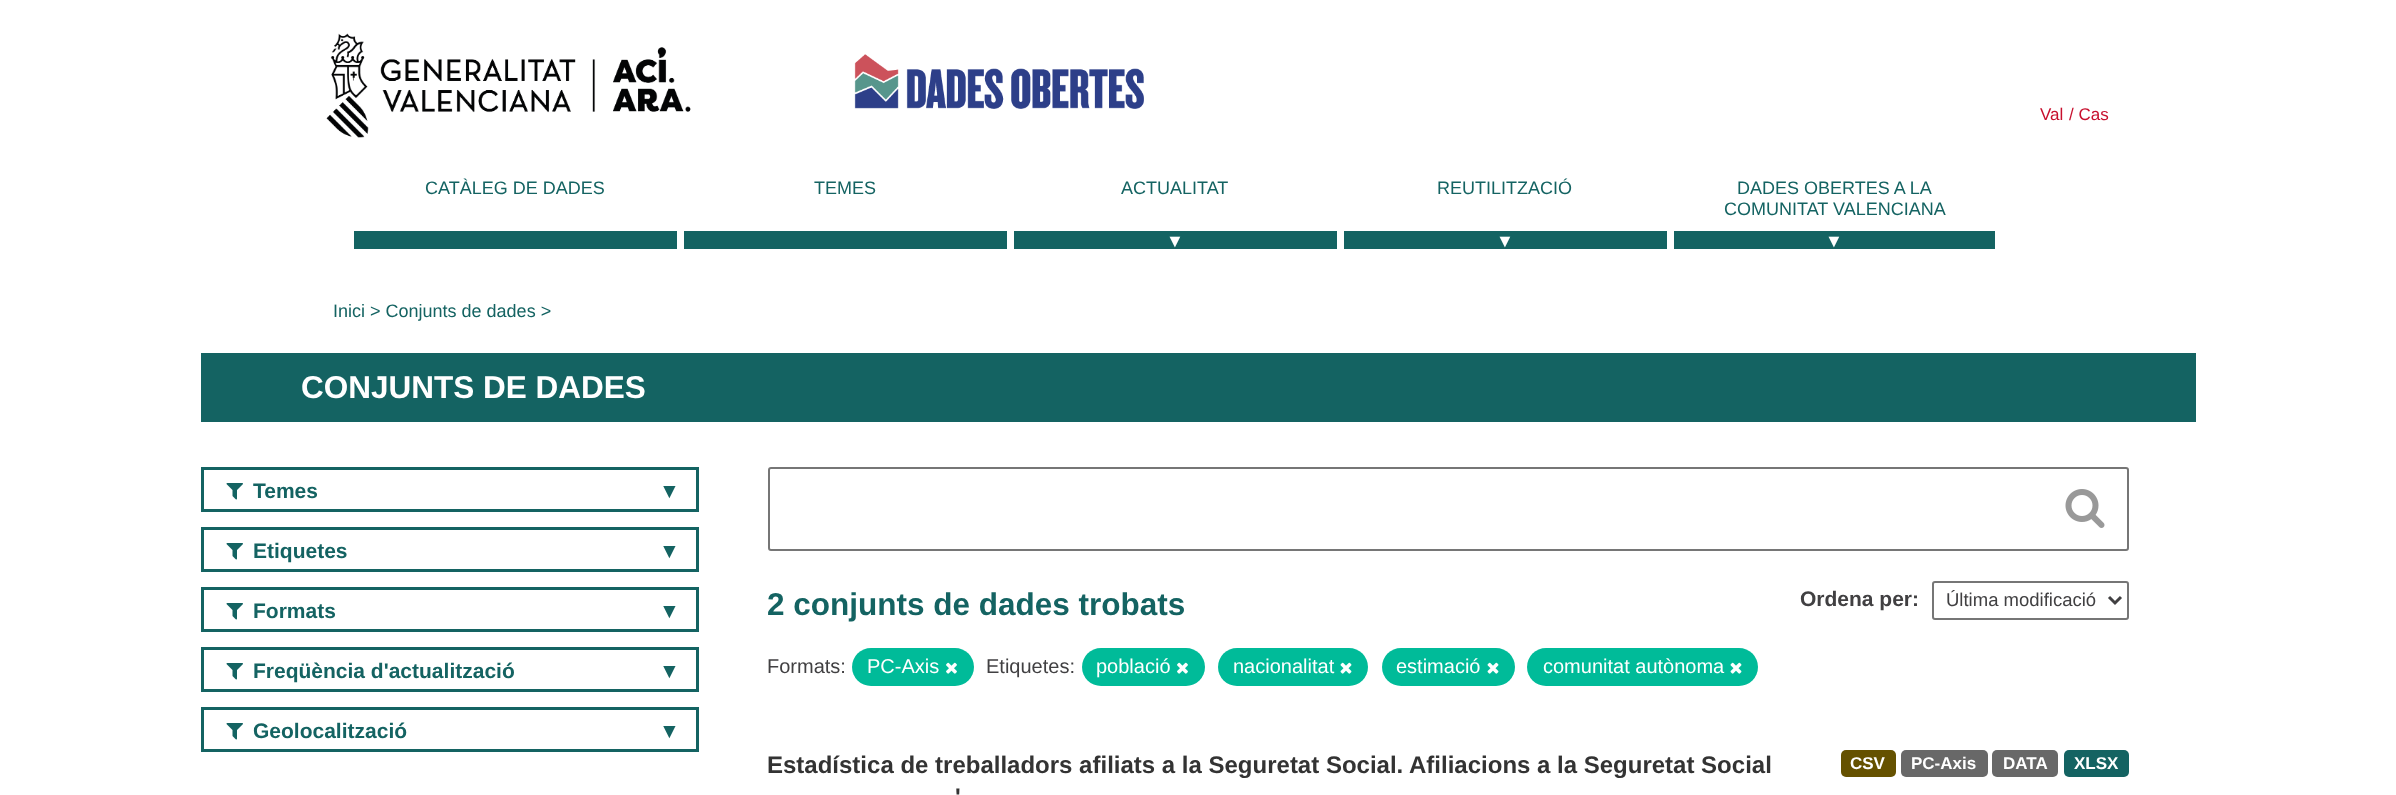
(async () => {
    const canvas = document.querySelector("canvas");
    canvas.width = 2396;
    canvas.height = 795;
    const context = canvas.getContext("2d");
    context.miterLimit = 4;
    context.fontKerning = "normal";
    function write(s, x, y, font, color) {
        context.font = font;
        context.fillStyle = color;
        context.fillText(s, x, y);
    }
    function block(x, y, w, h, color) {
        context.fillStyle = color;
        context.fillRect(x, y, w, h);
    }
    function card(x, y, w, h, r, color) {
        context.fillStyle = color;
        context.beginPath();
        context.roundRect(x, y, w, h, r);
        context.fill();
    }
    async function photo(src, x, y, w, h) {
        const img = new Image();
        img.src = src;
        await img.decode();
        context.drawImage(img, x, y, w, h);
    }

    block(0, 0, 2396, 795, "rgb(255, 255, 255)");
    await photo("media/1.png", 326, 33, 365, 105);
    await photo("media/2.png", 854, 54, 290, 55);
    write("Val", 2040, 120, "17px Liberation Sans", "rgb(199, 15, 45)");
    write("/ Cas", 2069, 120, "17px Liberation Sans", "rgb(199, 15, 45)");
    write("CATÀLEG DE DADES", 425, 194, "18px Liberation Sans", "rgb(20, 99, 98)");
    block(354, 231, 323, 18, "rgb(20, 99, 98)");
    write("TEMES", 814, 194, "18px Liberation Sans", "rgb(20, 99, 98)");
    block(684, 231, 323, 18, "rgb(20, 99, 98)");
    write("ACTUALITAT", 1121, 194, "18px Liberation Sans", "rgb(20, 99, 98)");
    block(1014, 231, 323, 18, "rgb(20, 99, 98)");
    write("▼", 1166, 247, "18px Liberation Sans", "rgb(255, 255, 255)");
    write("REUTILITZACIÓ", 1437, 194, "18px Liberation Sans", "rgb(20, 99, 98)");
    block(1344, 231, 323, 18, "rgb(20, 99, 98)");
    write("▼", 1496, 247, "18px Liberation Sans", "rgb(255, 255, 255)");
    write("DADES OBERTES A LA", 1737, 194, "18px Liberation Sans", "rgb(20, 99, 98)");
    write("COMUNITAT VALENCIANA", 1724, 215, "18px Liberation Sans", "rgb(20, 99, 98)");
    block(1674, 231, 321, 18, "rgb(20, 99, 98)");
    write("▼", 1825, 247, "18px Liberation Sans", "rgb(255, 255, 255)");
    write("Inici > Conjunts de dades >", 333, 317, "18px Liberation Sans", "rgb(20, 99, 98)");
    block(201, 353, 1995, 69, "rgb(20, 99, 98)");
    write("CONJUNTS DE DADES", 301, 398, "bold 31.5px Liberation Sans", "rgb(255, 255, 255)");
    context.strokeStyle = "rgb(20, 99, 98)";
    context.lineWidth = 3;
    context.strokeRect(202.5, 468.5, 495, 42);
    write("Temes", 253, 498, "bold 21px Liberation Sans", "rgb(20, 99, 98)");
    await photo("media/3.png", 226, 483, 17, 17);
    write("▼", 659, 498, "21px Liberation Serif", "rgb(20, 99, 98)");
    context.strokeRect(202.5, 528.5, 495, 42);
    write("Etiquetes", 253, 558, "bold 21px Liberation Sans", "rgb(20, 99, 98)");
    await photo("media/3.png", 226, 543, 17, 17);
    write("▼", 659, 558, "21px Liberation Serif", "rgb(20, 99, 98)");
    context.strokeRect(202.5, 588.5, 495, 42);
    write("Formats", 253, 618, "bold 21px Liberation Sans", "rgb(20, 99, 98)");
    await photo("media/3.png", 226, 603, 17, 17);
    write("▼", 659, 618, "21px Liberation Serif", "rgb(20, 99, 98)");
    context.strokeRect(202.5, 648.5, 495, 42);
    write("Freqüència d'actualització", 253, 678, "bold 21px Liberation Sans", "rgb(20, 99, 98)");
    await photo("media/3.png", 226, 663, 17, 17);
    write("▼", 659, 678, "21px Liberation Serif", "rgb(20, 99, 98)");
    context.strokeRect(202.5, 708.5, 495, 42);
    write("Geolocalització", 253, 738, "bold 21px Liberation Sans", "rgb(20, 99, 98)");
    await photo("media/3.png", 226, 723, 17, 17);
    write("▼", 659, 738, "21px Liberation Serif", "rgb(20, 99, 98)");
    context.beginPath();
    context.roundRect(769, 468, 1359, 82, 2);
    context.strokeStyle = "rgb(118, 118, 118)";
    context.lineWidth = 2;
    context.stroke();
    await photo("media/4.png", 2065, 489, 40, 39);
    write("2 conjunts de dades trobats", 767, 615, "bold 31.5px Liberation Sans", "rgb(20, 99, 98)");
    write("Ordena per:", 1800, 606, "bold 21px Liberation Sans", "rgb(65, 64, 66)");
    context.beginPath();
    context.roundRect(1933, 582, 195, 37, 2);
    context.stroke();
    context.beginPath();
    context.moveTo(2109, 597);
    context.lineTo(2115, 603);
    context.lineTo(2121, 597);
    context.strokeStyle = "rgb(65, 64, 66)";
    context.lineWidth = 3;
    context.stroke();
    write("Última modificació", 1946, 606, "18.5px Liberation Sans", "rgb(65, 64, 66)");
    write("Formats:", 767, 673, "20px Liberation Sans", "rgb(65, 64, 66)");
    card(852, 648, 122, 38, 19, "rgb(0, 187, 153)");
    write("PC-Axis", 867, 673, "20px Liberation Sans", "rgb(255, 255, 255)");
    await photo("media/5.png", 946, 662, 11, 12);
    write("Etiquetes:", 986, 673, "20px Liberation Sans", "rgb(65, 64, 66)");
    card(1082, 648, 123, 38, 19, "rgb(0, 187, 153)");
    write("població", 1096, 673, "20px Liberation Sans", "rgb(255, 255, 255)");
    await photo("media/5.png", 1177, 662, 11, 12);
    card(1218, 648, 150, 38, 19, "rgb(0, 187, 153)");
    write("nacionalitat", 1233, 673, "20px Liberation Sans", "rgb(255, 255, 255)");
    await photo("media/6.png", 1340, 662, 12, 12);
    card(1382, 648, 133, 38, 19, "rgb(0, 187, 153)");
    write("estimació", 1396, 673, "20px Liberation Sans", "rgb(255, 255, 255)");
    await photo("media/6.png", 1487, 662, 12, 12);
    card(1527, 648, 231, 38, 19, "rgb(0, 187, 153)");
    write("comunitat autònoma", 1543, 673, "20px Liberation Sans", "rgb(255, 255, 255)");
    await photo("media/6.png", 1730, 662, 12, 12);
    write("Estadística de treballadors afiliats a la Seguretat Social. Afiliacions a la Seguretat Social", 767, 773, "bold 24px Liberation Sans", "rgb(51, 51, 51)");
    write("'", 955, 805, "bold 24px Liberation Sans", "rgb(51, 51, 51)");
    card(1841, 750, 55, 27, 5, "rgb(101, 81, 0)");
    write("CSV", 1850, 769, "bold 17px Liberation Sans", "rgb(255, 255, 255)");
    card(1901, 750, 87, 27, 5, "rgb(104, 104, 104)");
    write("PC-Axis", 1911, 769, "bold 17px Liberation Sans", "rgb(255, 255, 255)");
    card(1992, 750, 66, 27, 5, "rgb(104, 104, 104)");
    write("DATA", 2003, 769, "bold 17px Liberation Sans", "rgb(255, 255, 255)");
    card(2064, 750, 65, 27, 5, "rgb(20, 99, 98)");
    write("XLSX", 2074, 769, "bold 17px Liberation Sans", "rgb(255, 255, 255)");
})();
